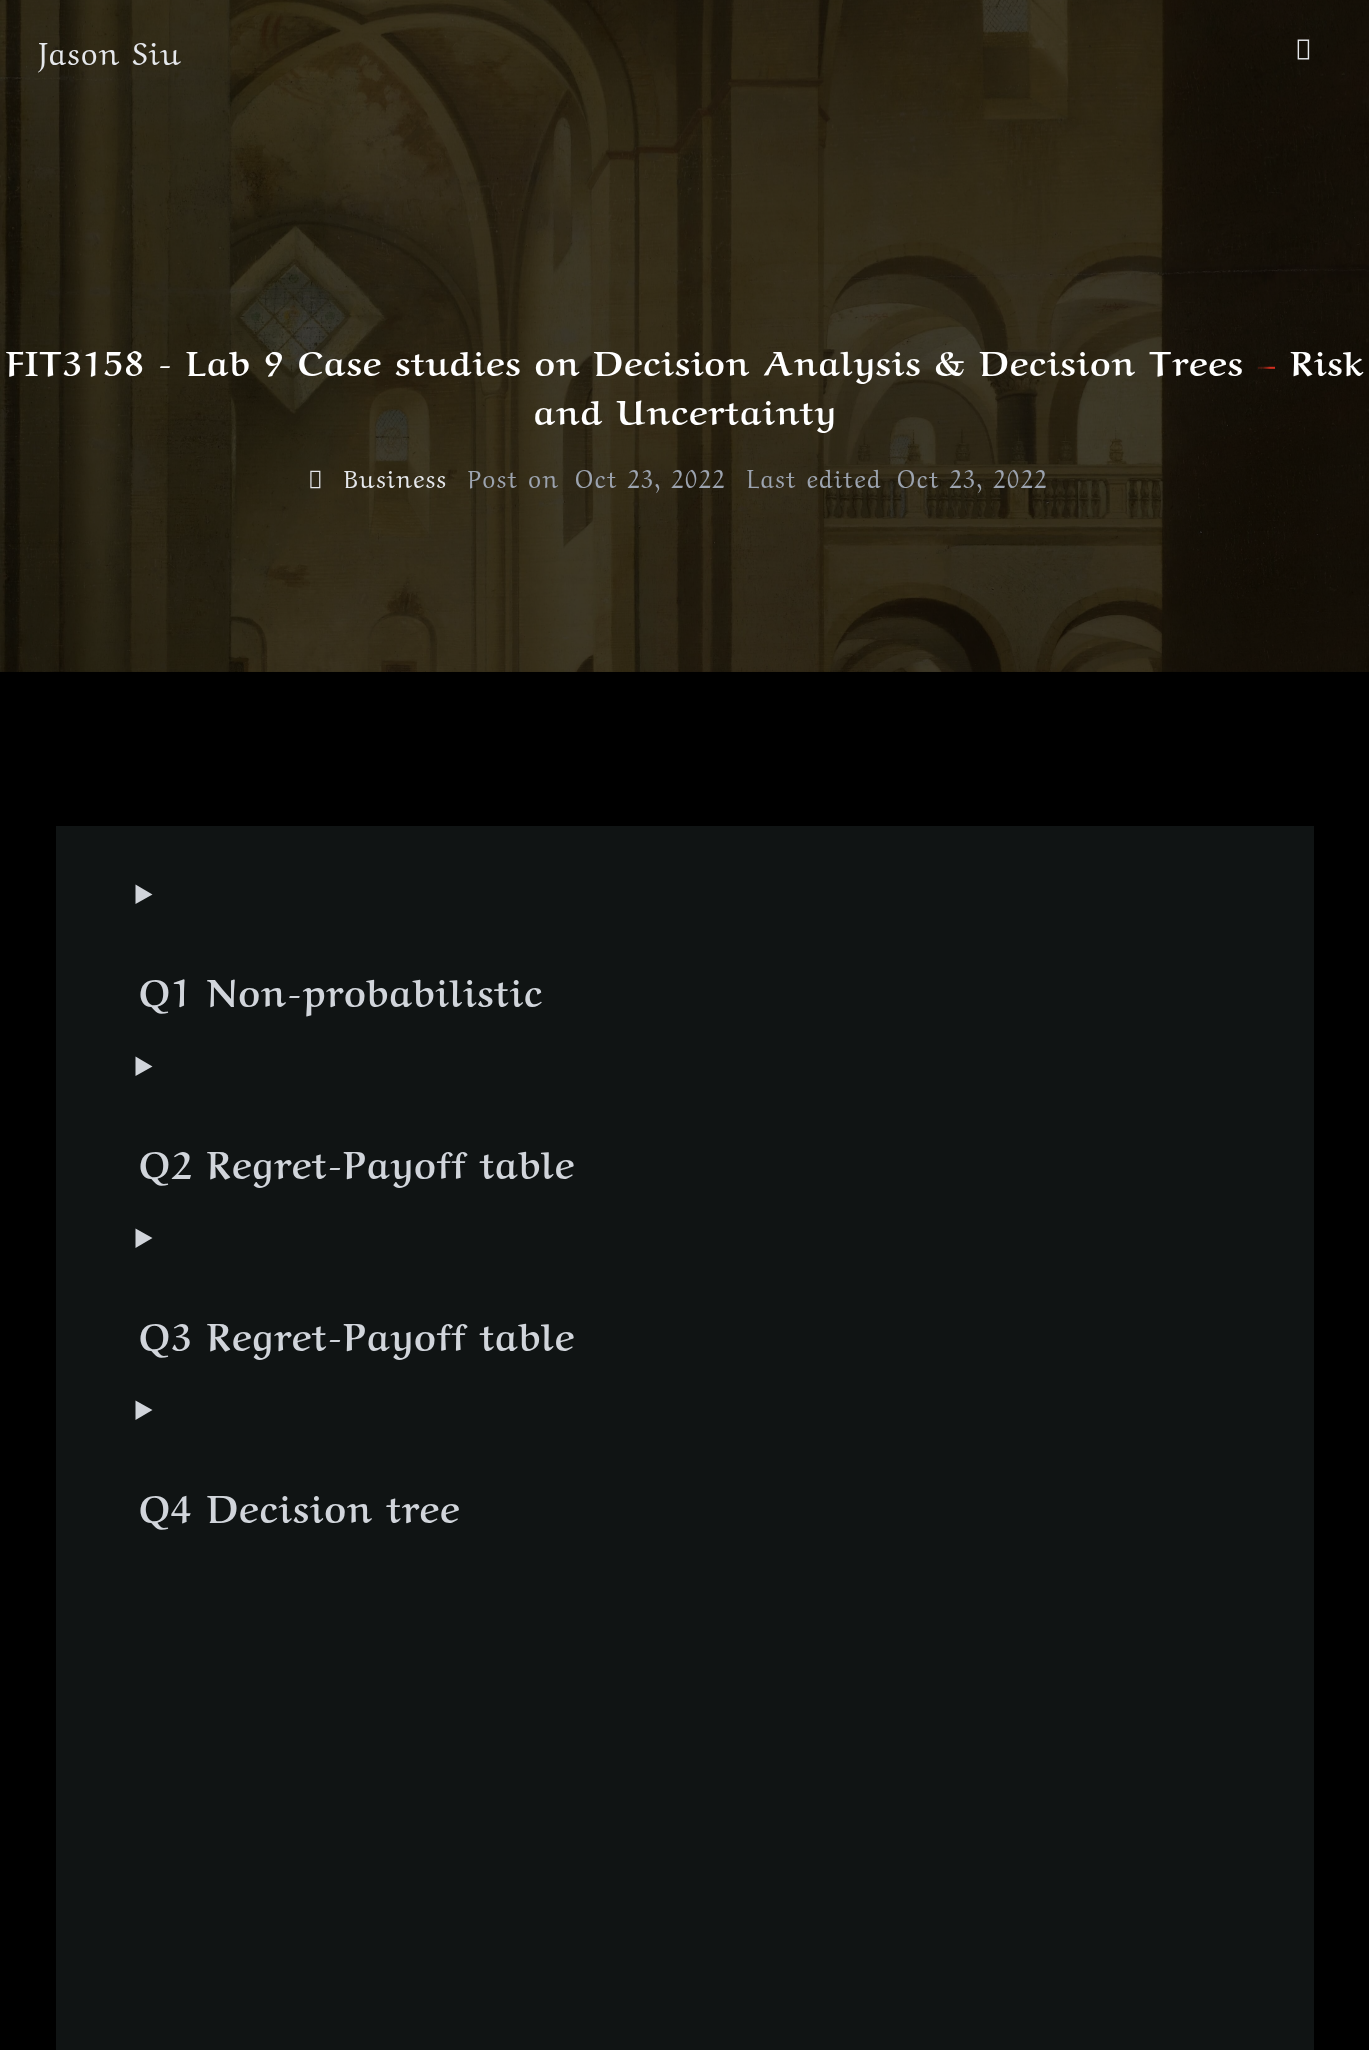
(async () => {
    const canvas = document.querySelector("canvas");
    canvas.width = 1369;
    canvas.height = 2050;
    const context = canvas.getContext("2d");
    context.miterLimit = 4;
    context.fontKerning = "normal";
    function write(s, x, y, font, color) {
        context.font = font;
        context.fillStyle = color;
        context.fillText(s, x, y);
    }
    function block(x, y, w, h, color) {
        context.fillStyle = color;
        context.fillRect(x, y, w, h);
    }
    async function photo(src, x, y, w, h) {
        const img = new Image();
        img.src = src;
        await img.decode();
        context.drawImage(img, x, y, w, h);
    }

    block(0, 0, 1369, 2050, "rgb(0, 0, 0)");
    await photo("media/2.png", 0, 0, 1369, 672);
    context.letterSpacing = "1.4px";
    write("Jason Siu", 39, 65, "31.5px Aref Ruqaa Ink", "rgb(229, 231, 235)");
    await photo("media/1.png", 1297, 39, 13, 21);
    write("FIT3158 - Lab 9 Case studies on Decision Analysis & Decision Trees – Risk", 6, 376, "bold 35px Aref Ruqaa Ink", "rgb(255, 255, 255)");
    write("and Uncertainty", 534, 425, "bold 35px Aref Ruqaa Ink", "rgb(255, 255, 255)");
    await photo("media/3.png", 310, 470, 11, 19);
    write("Business", 344, 488, "24.5px Aref Ruqaa Ink", "rgb(229, 231, 235)");
    write("Post on", 468, 488, "24.5px Aref Ruqaa Ink", "rgb(156, 163, 175)");
    write("Oct 23, 2022", 575, 488, "24.5px Aref Ruqaa Ink", "rgb(156, 163, 175)");
    write("Last edited", 747, 488, "24.5px Aref Ruqaa Ink", "rgb(156, 163, 175)");
    write("Oct 23, 2022", 897, 488, "24.5px Aref Ruqaa Ink", "rgb(156, 163, 175)");
    block(56, 826, 1258, 1224, "rgb(16, 20, 20)");
    context.fillStyle = "rgb(209, 213, 219)";
    context.beginPath();
    context.moveTo(135.5, 884.5);
    context.lineTo(152.5, 894.5);
    context.lineTo(135.5, 904);
    context.closePath();
    context.fill();
    write("Q1 Non-probabilistic", 139, 1007, "bold 37.25px Aref Ruqaa Ink", "rgb(209, 213, 219)");
    context.beginPath();
    context.moveTo(135.5, 1056.5);
    context.lineTo(152.5, 1066.5);
    context.lineTo(135.5, 1076);
    context.closePath();
    context.fill();
    write("Q2 Regret-Payoff table", 139, 1179, "bold 37.25px Aref Ruqaa Ink", "rgb(209, 213, 219)");
    context.beginPath();
    context.moveTo(135.5, 1228.5);
    context.lineTo(152.5, 1238);
    context.lineTo(135.5, 1248);
    context.closePath();
    context.fill();
    write("Q3 Regret-Payoff table", 139, 1351, "bold 37.25px Aref Ruqaa Ink", "rgb(209, 213, 219)");
    context.beginPath();
    context.moveTo(135.5, 1400.5);
    context.lineTo(152.5, 1410);
    context.lineTo(135.5, 1420);
    context.closePath();
    context.fill();
    write("Q4 Decision tree", 139, 1523, "bold 37.25px Aref Ruqaa Ink", "rgb(209, 213, 219)");
})();
